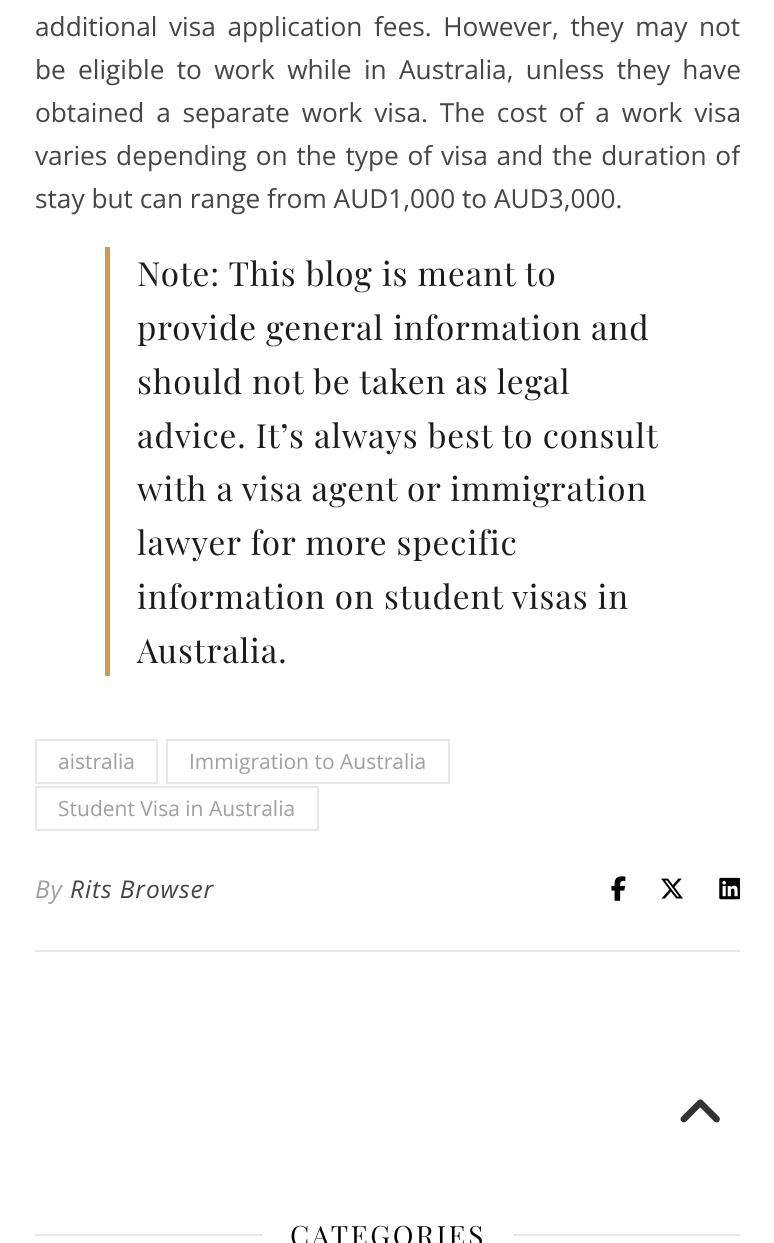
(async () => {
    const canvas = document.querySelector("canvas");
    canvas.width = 774;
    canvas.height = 1243;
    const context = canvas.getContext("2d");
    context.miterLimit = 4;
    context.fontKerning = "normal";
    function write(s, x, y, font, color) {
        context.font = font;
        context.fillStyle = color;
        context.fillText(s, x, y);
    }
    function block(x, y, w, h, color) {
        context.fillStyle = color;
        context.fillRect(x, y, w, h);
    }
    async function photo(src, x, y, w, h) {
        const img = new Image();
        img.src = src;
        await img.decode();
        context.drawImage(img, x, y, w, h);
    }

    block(0, 0, 774, 1243, "rgb(255, 255, 255)");
    context.wordSpacing = "4.75px";
    write("additional visa application fees. However, they may not", 35, 36, "26.25px Open Sans", "rgb(70, 70, 70)");
    context.wordSpacing = "5.5px";
    write("be eligible to work while in Australia, unless they have", 35, 79, "26.25px Open Sans", "rgb(70, 70, 70)");
    context.wordSpacing = "5px";
    write("obtained a separate work visa. The cost of a work visa", 35, 122, "26.25px Open Sans", "rgb(70, 70, 70)");
    context.save();
    context.beginPath();
    context.rect(35, 0, 705, 702);
    context.clip();
    context.wordSpacing = "2px";
    write("varies depending on the type of visa and the duration of", 35, 165, "26.25px Open Sans", "rgb(70, 70, 70)");
    context.restore();
    context.wordSpacing = "0px";
    write("stay but can range from AUD1,000 to AUD3,000.", 35, 208, "26.25px Open Sans", "rgb(70, 70, 70)");
    block(105, 247, 5, 429, "rgb(202, 155, 82)");
    context.letterSpacing = "0.9px";
    write("Note: This blog is meant to", 137, 286, "33.25px Playfair Display", "rgb(28, 28, 28)");
    write("provide general information and", 137, 340, "33.25px Playfair Display", "rgb(28, 28, 28)");
    write("should not be taken as legal", 137, 394, "33.25px Playfair Display", "rgb(28, 28, 28)");
    write("advice. It’s always best to consult", 137, 448, "33.25px Playfair Display", "rgb(28, 28, 28)");
    write("with a visa agent or immigration", 137, 501, "33.25px Playfair Display", "rgb(28, 28, 28)");
    write("lawyer for more specific", 137, 555, "33.25px Playfair Display", "rgb(28, 28, 28)");
    write("information on student visas in", 137, 609, "33.25px Playfair Display", "rgb(28, 28, 28)");
    write("Australia.", 137, 663, "33.25px Playfair Display", "rgb(28, 28, 28)");
    block(35, 950, 705, 2, "rgb(232, 232, 232)");
    context.strokeStyle = "rgb(232, 232, 232)";
    context.lineWidth = 2;
    context.strokeRect(36, 740, 121, 43);
    context.letterSpacing = "0px";
    write("aistralia", 58, 769, "21px Open Sans", "rgb(161, 161, 161)");
    context.strokeRect(167, 740, 282, 43);
    write("Immigration to Australia", 189, 769, "21px Open Sans", "rgb(161, 161, 161)");
    context.strokeRect(36, 787, 282, 43);
    write("Student Visa in Australia", 58, 816, "21px Open Sans", "rgb(161, 161, 161)");
    context.letterSpacing = "0.9px";
    write("By", 35, 898, "italic 24.5px Open Sans", "rgb(161, 161, 161)");
    write("Rits Browser", 70, 898, "italic 24.5px Open Sans", "rgb(70, 70, 70)");
    await photo("media/1.png", 611, 876, 15, 25);
    await photo("media/2.png", 661, 878, 22, 21);
    await photo("media/3.png", 719, 877, 21, 23);
    block(35, 1234, 228, 2, "rgb(232, 232, 232)");
    context.letterSpacing = "2.6px";
    write("CATEGORIES", 290, 1246, "28px Playfair Display", "rgb(3, 3, 3)");
    block(513, 1234, 227, 2, "rgb(232, 232, 232)");
    await photo("media/4.png", 680, 1099, 40, 24);
})();
